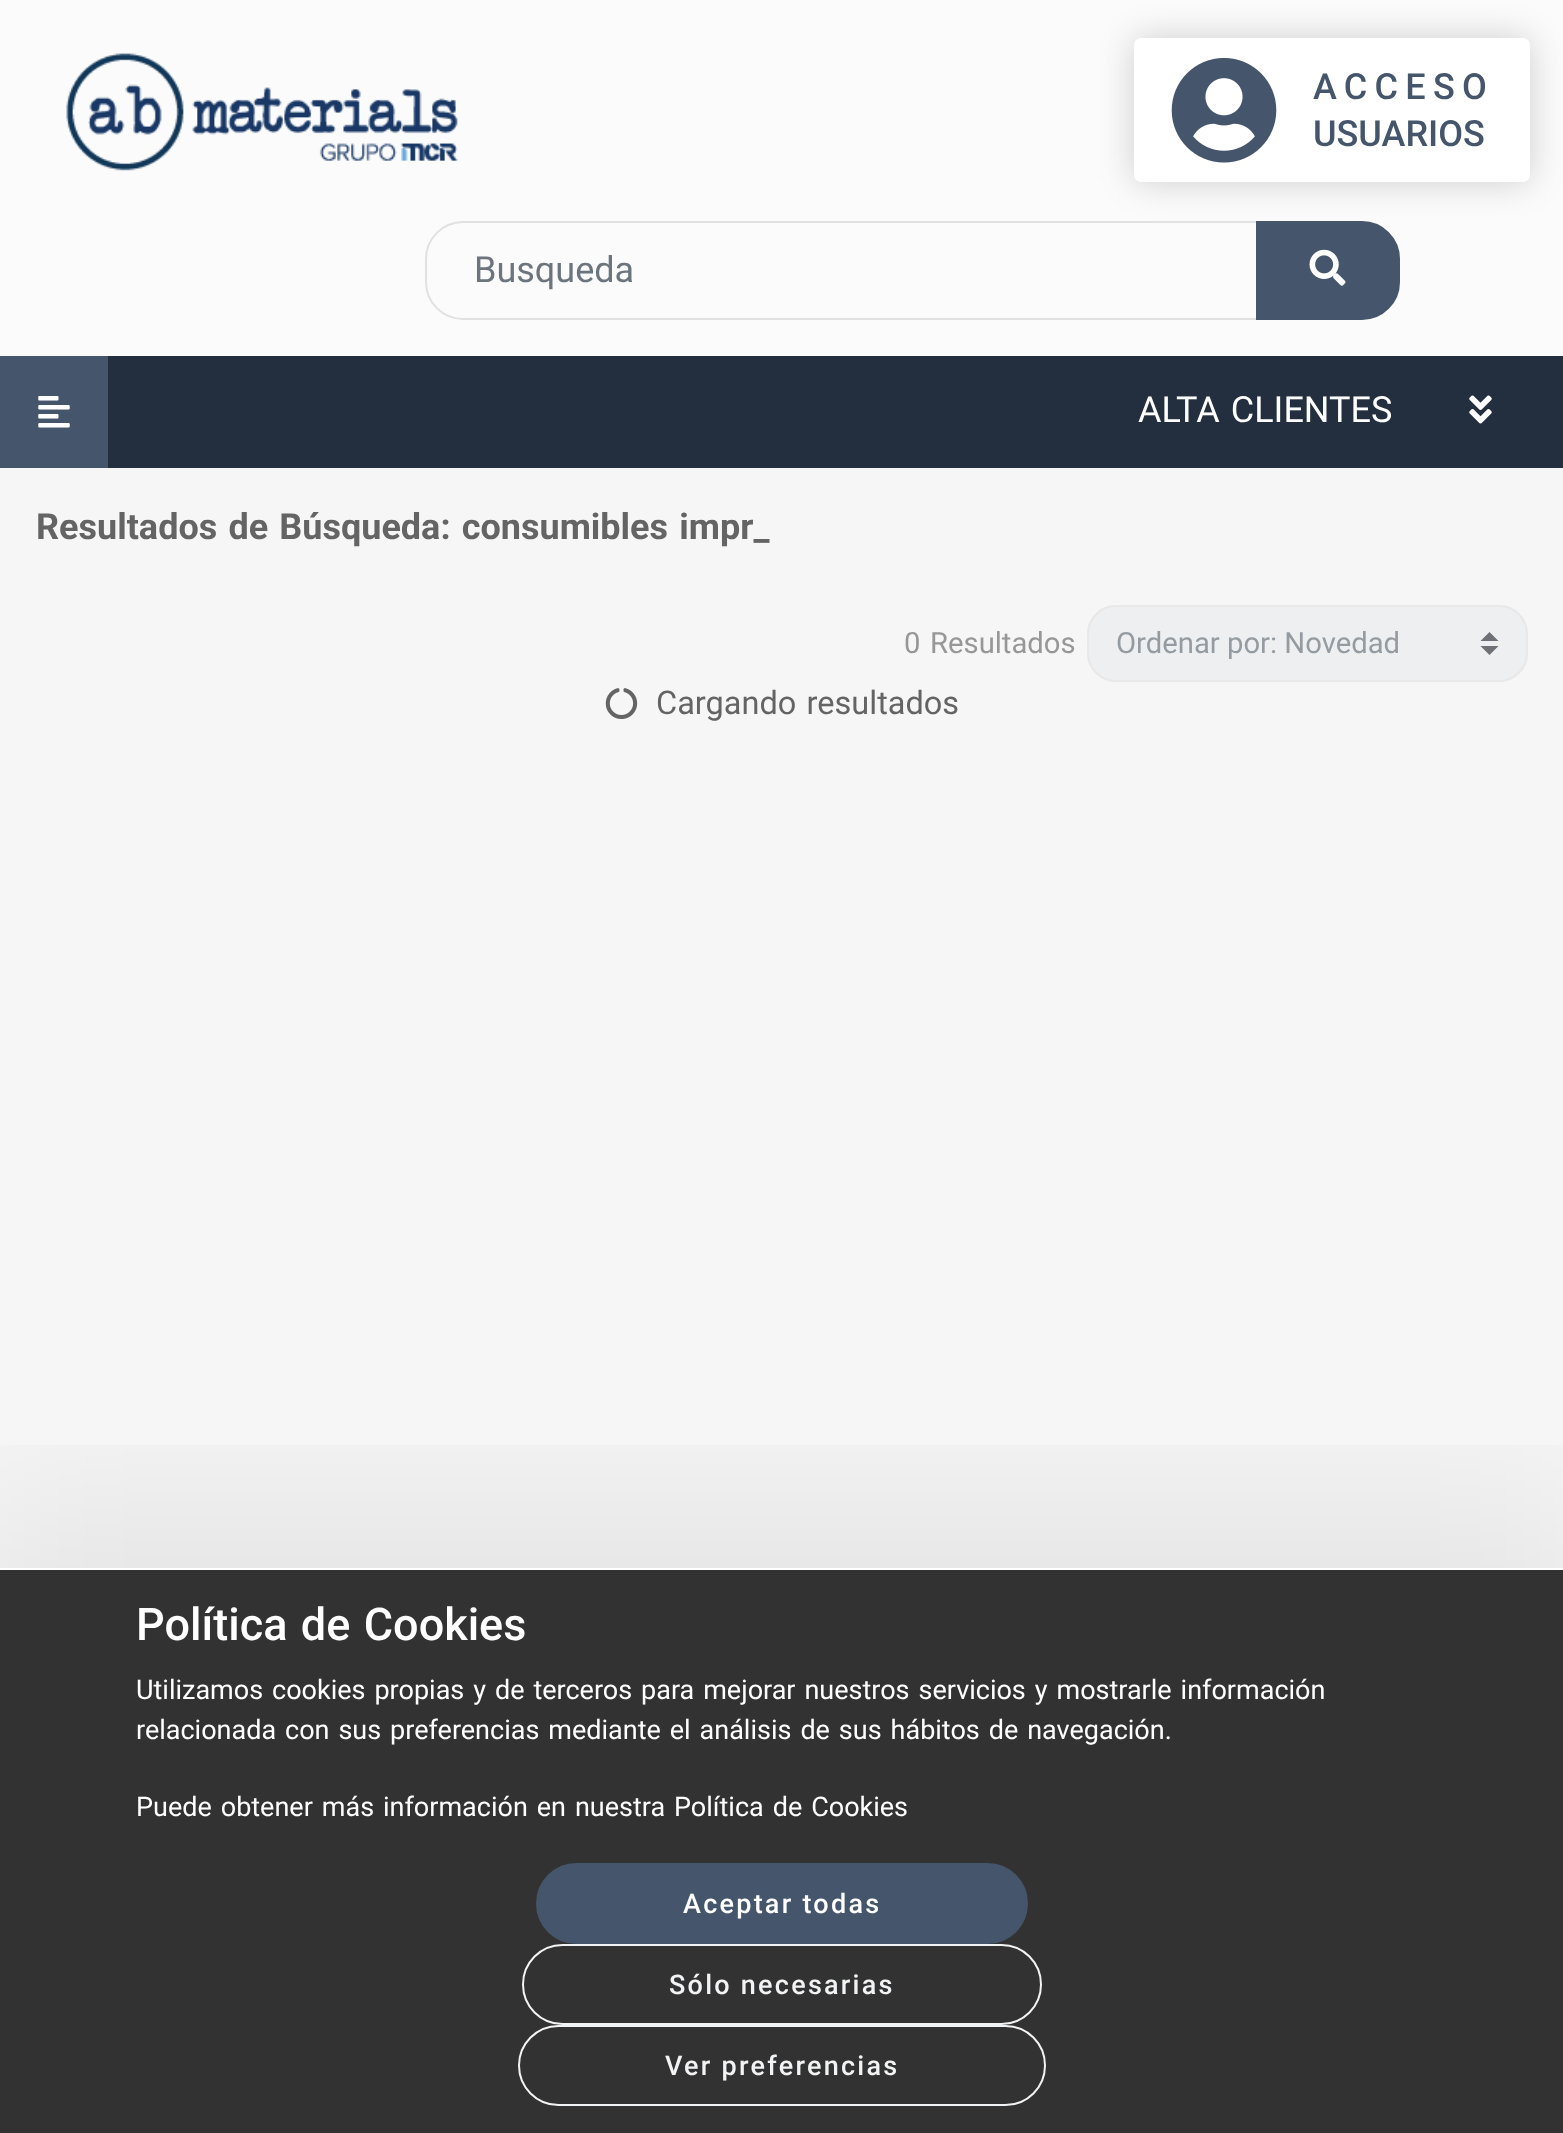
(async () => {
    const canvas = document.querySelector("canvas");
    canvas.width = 1563;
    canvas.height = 2133;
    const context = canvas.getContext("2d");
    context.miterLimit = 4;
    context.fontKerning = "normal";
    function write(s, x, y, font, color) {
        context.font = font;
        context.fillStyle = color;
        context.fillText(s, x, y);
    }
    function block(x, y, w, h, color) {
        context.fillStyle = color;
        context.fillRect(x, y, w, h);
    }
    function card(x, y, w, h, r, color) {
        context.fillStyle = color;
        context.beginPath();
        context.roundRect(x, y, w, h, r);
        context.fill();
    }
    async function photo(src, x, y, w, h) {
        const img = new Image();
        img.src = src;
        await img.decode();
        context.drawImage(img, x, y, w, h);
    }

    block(0, 0, 1563, 2133, "rgb(246, 246, 246)");
    block(0, 0, 1563, 356, "rgb(251, 251, 251)");
    await photo("media/1.png", 66, 53, 392, 118);
    context.fillStyle = "rgba(0, 0, 0, 0.18)";
    context.filter = "blur(17px)";
    context.beginPath();
    context.roundRect(1134, 38, 396, 144, 7);
    context.fill();
    context.filter = "none";
    card(1134, 38, 396, 144, 7, "rgb(255, 255, 255)");
    await photo("media/2.png", 1171, 57, 106, 106);
    context.letterSpacing = "7.25px";
    write("ACCESO", 1313, 99, "500 36px Roboto", "rgb(69, 85, 107)");
    context.letterSpacing = "0px";
    write("USUARIOS", 1313, 146, "500 36px Roboto", "rgb(69, 85, 107)");
    context.beginPath();
    context.roundRect(426, 222, 876, 97, [37, 0, 0, 37]);
    context.strokeStyle = "rgb(225, 225, 225)";
    context.lineWidth = 2;
    context.stroke();
    write("Busqueda", 474, 282, "36px Roboto", "rgb(108, 117, 125)");
    context.fillStyle = "rgb(69, 85, 107)";
    context.beginPath();
    context.roundRect(1257, 222, 142, 97, [0, 37, 37, 0]);
    context.fill();
    context.strokeStyle = "rgb(69, 85, 107)";
    context.stroke();
    await photo("media/3.png", 1309, 249, 37, 37);
    block(0, 356, 108, 112, "rgb(69, 85, 107)");
    await photo("media/4.png", 38, 396, 32, 32);
    block(108, 356, 1455, 112, "rgb(35, 47, 63)");
    context.wordSpacing = "2.25px";
    write("ALTA CLIENTES", 1138, 422, "36px Roboto", "rgb(255, 255, 255)");
    await photo("media/5.png", 1469, 395, 23, 29);
    write("Resultados de Búsqueda: consumibles impr_", 36, 539, "bold 36px Roboto", "rgb(100, 100, 100)");
    context.wordSpacing = "0px";
    write("0", 904, 653, "29.25px Roboto", "rgb(151, 151, 151)");
    write("Resultados", 930, 653, "29.25px Roboto", "rgb(151, 151, 151)");
    card(1087, 605, 441, 77, 29, "rgb(237, 239, 241)");
    context.fillStyle = "rgb(110, 114, 119)";
    context.beginPath();
    context.moveTo(1489.5, 632);
    context.lineTo(1480.5, 641);
    context.lineTo(1498.5, 641);
    context.closePath();
    context.moveTo(1489.5, 655);
    context.lineTo(1480.5, 646);
    context.lineTo(1498.5, 646);
    context.closePath();
    context.fill();
    context.beginPath();
    context.roundRect(1088, 606, 439, 75, 28);
    context.strokeStyle = "rgb(232, 232, 232)";
    context.stroke();
    write("Ordenar por: Novedad", 1116, 653, "29.25px Roboto", "rgb(149, 156, 161)");
    await photo("media/6.png", 605, 688, 33, 31);
    context.wordSpacing = "2.25px";
    write("Cargando resultados", 656, 714, "32.5px Roboto", "rgb(100, 100, 100)");
    context.save();
    context.beginPath();
    context.rect(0, 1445, 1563, 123);
    context.clip();
    context.fillStyle = "rgba(0, 0, 0, 0.07)";
    context.filter = "blur(90px)";
    context.beginPath();
    context.rect(-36, 1496, 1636, 637);
    context.fill();
    context.filter = "none";
    context.restore();
    block(0, 1570, 1563, 563, "rgba(34, 34, 34, 0.93)");
    block(0, 1568, 1563, 2, "rgb(255, 255, 255)");
    write("Política de Cookies", 136, 1640, "500 45px Roboto", "rgb(255, 255, 255)");
    write("Utilizamos cookies propias y de terceros para mejorar nuestros servicios y mostrarle información", 136, 1699, "27px Roboto", "rgb(255, 255, 255)");
    write("relacionada con sus preferencias mediante el análisis de sus hábitos de navegación.", 136, 1739, "27px Roboto", "rgb(255, 255, 255)");
    write("Puede obtener más información en nuestra", 136, 1816, "27px Roboto", "rgb(255, 255, 255)");
    write("Política de Cookies", 674, 1816, "27px Roboto", "rgb(255, 255, 255)");
    context.fillStyle = "rgb(69, 85, 107)";
    context.beginPath();
    context.roundRect(537, 1864, 490, 79, 39.5);
    context.fill();
    context.strokeStyle = "rgb(69, 85, 107)";
    context.stroke();
    context.letterSpacing = "2.25px";
    context.wordSpacing = "0px";
    write("Aceptar todas", 683, 1913, "500 27px Roboto", "rgb(255, 255, 255)");
    context.beginPath();
    context.roundRect(523, 1945, 518, 79, 39.5);
    context.strokeStyle = "rgb(242, 243, 244)";
    context.stroke();
    write("Sólo necesarias", 669, 1994, "500 27px Roboto", "rgb(242, 243, 244)");
    context.beginPath();
    context.roundRect(519, 2026, 526, 79, 39.5);
    context.stroke();
    write("Ver preferencias", 665, 2075, "500 27px Roboto", "rgb(242, 243, 244)");
})();
